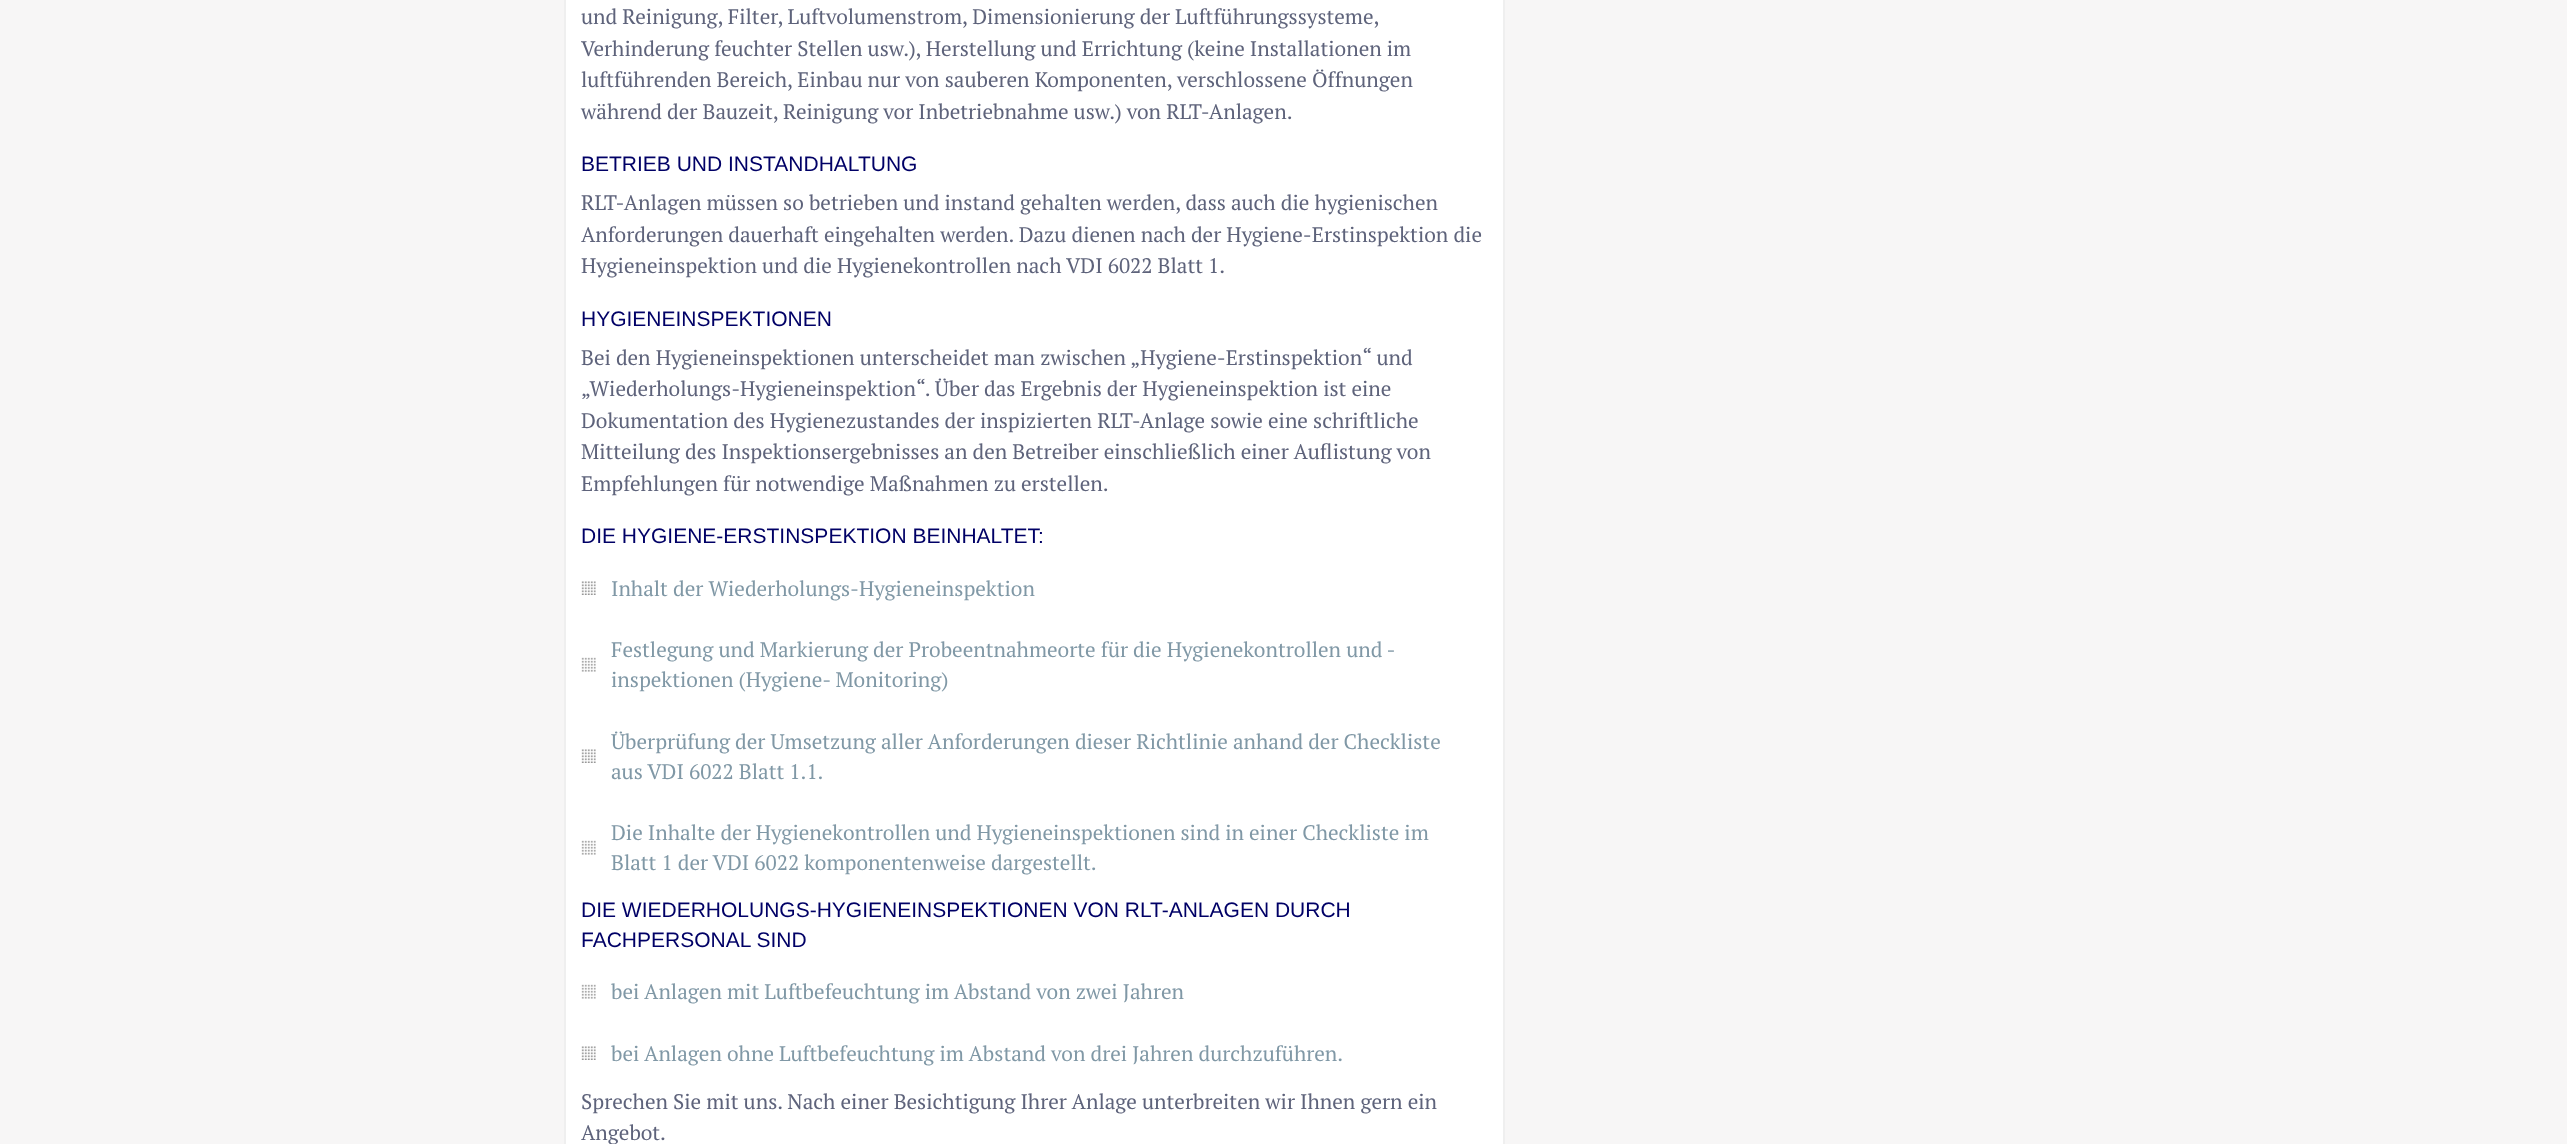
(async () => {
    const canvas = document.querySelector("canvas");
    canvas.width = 2567;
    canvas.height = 1144;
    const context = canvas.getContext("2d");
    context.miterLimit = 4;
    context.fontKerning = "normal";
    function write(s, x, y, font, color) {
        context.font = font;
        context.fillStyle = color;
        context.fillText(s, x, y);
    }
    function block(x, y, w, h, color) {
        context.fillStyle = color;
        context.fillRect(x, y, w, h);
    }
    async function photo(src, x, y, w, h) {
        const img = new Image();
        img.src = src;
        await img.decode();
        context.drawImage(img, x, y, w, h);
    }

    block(0, 0, 2567, 1144, "rgb(247, 246, 246)");
    context.fillStyle = "rgb(255, 255, 255)";
    context.beginPath();
    context.rect(565, -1, 939, 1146);
    context.fill();
    context.strokeStyle = "rgb(239, 239, 239)";
    context.lineWidth = 2;
    context.stroke();
    write("und Reinigung, Filter, Luftvolumenstrom, Dimensionierung der Luftführungssysteme,", 581, 24, "21px PT Serif", "rgb(94, 99, 123)");
    write("Verhinderung feuchter Stellen usw.), Herstellung und Errichtung (keine Installationen im", 581, 56, "21px PT Serif", "rgb(94, 99, 123)");
    write("luftführenden Bereich, Einbau nur von sauberen Komponenten, verschlossene Öffnungen", 581, 87, "21px PT Serif", "rgb(94, 99, 123)");
    write("während der Bauzeit, Reinigung vor Inbetriebnahme usw.) von RLT-Anlagen.", 581, 119, "21px PT Serif", "rgb(94, 99, 123)");
    write("BETRIEB UND INSTANDHALTUNG", 581, 171, "21px Liberation Sans", "rgb(0, 0, 102)");
    write("RLT-Anlagen müssen so betrieben und instand gehalten werden, dass auch die hygienischen", 581, 210, "21px PT Serif", "rgb(94, 99, 123)");
    write("Anforderungen dauerhaft eingehalten werden. Dazu dienen nach der Hygiene-Erstinspektion die", 581, 242, "21px PT Serif", "rgb(94, 99, 123)");
    write("Hygieneinspektion und die Hygienekontrollen nach VDI 6022 Blatt 1.", 581, 273, "21px PT Serif", "rgb(94, 99, 123)");
    write("HYGIENEINSPEKTIONEN", 581, 326, "21px Liberation Sans", "rgb(0, 0, 102)");
    write("Bei den Hygieneinspektionen unterscheidet man zwischen „Hygiene-Erstinspektion“ und", 581, 365, "21px PT Serif", "rgb(94, 99, 123)");
    write("„Wiederholungs-Hygieneinspektion“. Über das Ergebnis der Hygieneinspektion ist eine", 581, 396, "21px PT Serif", "rgb(94, 99, 123)");
    write("Dokumentation des Hygienezustandes der inspizierten RLT-Anlage sowie eine schriftliche", 581, 428, "21px PT Serif", "rgb(94, 99, 123)");
    write("Mitteilung des Inspektionsergebnisses an den Betreiber einschließlich einer Auflistung von", 581, 459, "21px PT Serif", "rgb(94, 99, 123)");
    write("Empfehlungen für notwendige Maßnahmen zu erstellen.", 581, 491, "21px PT Serif", "rgb(94, 99, 123)");
    write("DIE HYGIENE-ERSTINSPEKTION BEINHALTET:", 581, 543, "21px Liberation Sans", "rgb(0, 0, 102)");
    await photo("media/1.png", 581, 581, 15, 14);
    write("Inhalt der Wiederholungs-Hygieneinspektion", 611, 596, "21px PT Serif", "rgb(128, 152, 166)");
    await photo("media/2.png", 581, 657, 15, 15);
    write("Festlegung und Markierung der Probeentnahmeorte für die Hygienekontrollen und -", 611, 657, "21px PT Serif", "rgb(128, 152, 166)");
    write("inspektionen (Hygiene- Monitoring)", 611, 687, "21px PT Serif", "rgb(128, 152, 166)");
    await photo("media/1.png", 581, 749, 15, 14);
    write("Überprüfung der Umsetzung aller Anforderungen dieser Richtlinie anhand der Checkliste", 611, 749, "21px PT Serif", "rgb(128, 152, 166)");
    write("aus VDI 6022 Blatt 1.1.", 611, 779, "21px PT Serif", "rgb(128, 152, 166)");
    await photo("media/2.png", 581, 840, 15, 15);
    write("Die Inhalte der Hygienekontrollen und Hygieneinspektionen sind in einer Checkliste im", 611, 840, "21px PT Serif", "rgb(128, 152, 166)");
    write("Blatt 1 der VDI 6022 komponentenweise dargestellt.", 611, 870, "21px PT Serif", "rgb(128, 152, 166)");
    write("DIE WIEDERHOLUNGS-HYGIENEINSPEKTIONEN VON RLT-ANLAGEN DURCH", 581, 917, "21px Liberation Sans", "rgb(0, 0, 102)");
    write("FACHPERSONAL SIND", 581, 947, "21px Liberation Sans", "rgb(0, 0, 102)");
    await photo("media/2.png", 581, 984, 15, 15);
    write("bei Anlagen mit Luftbefeuchtung im Abstand von zwei Jahren", 611, 999, "21px PT Serif", "rgb(128, 152, 166)");
    await photo("media/1.png", 581, 1046, 15, 14);
    write("bei Anlagen ohne Luftbefeuchtung im Abstand von drei Jahren durchzuführen.", 611, 1061, "21px PT Serif", "rgb(128, 152, 166)");
    write("Sprechen Sie mit uns. Nach einer Besichtigung Ihrer Anlage unterbreiten wir Ihnen gern ein", 581, 1109, "21px PT Serif", "rgb(94, 99, 123)");
    write("Angebot.", 581, 1140, "21px PT Serif", "rgb(94, 99, 123)");
})();
